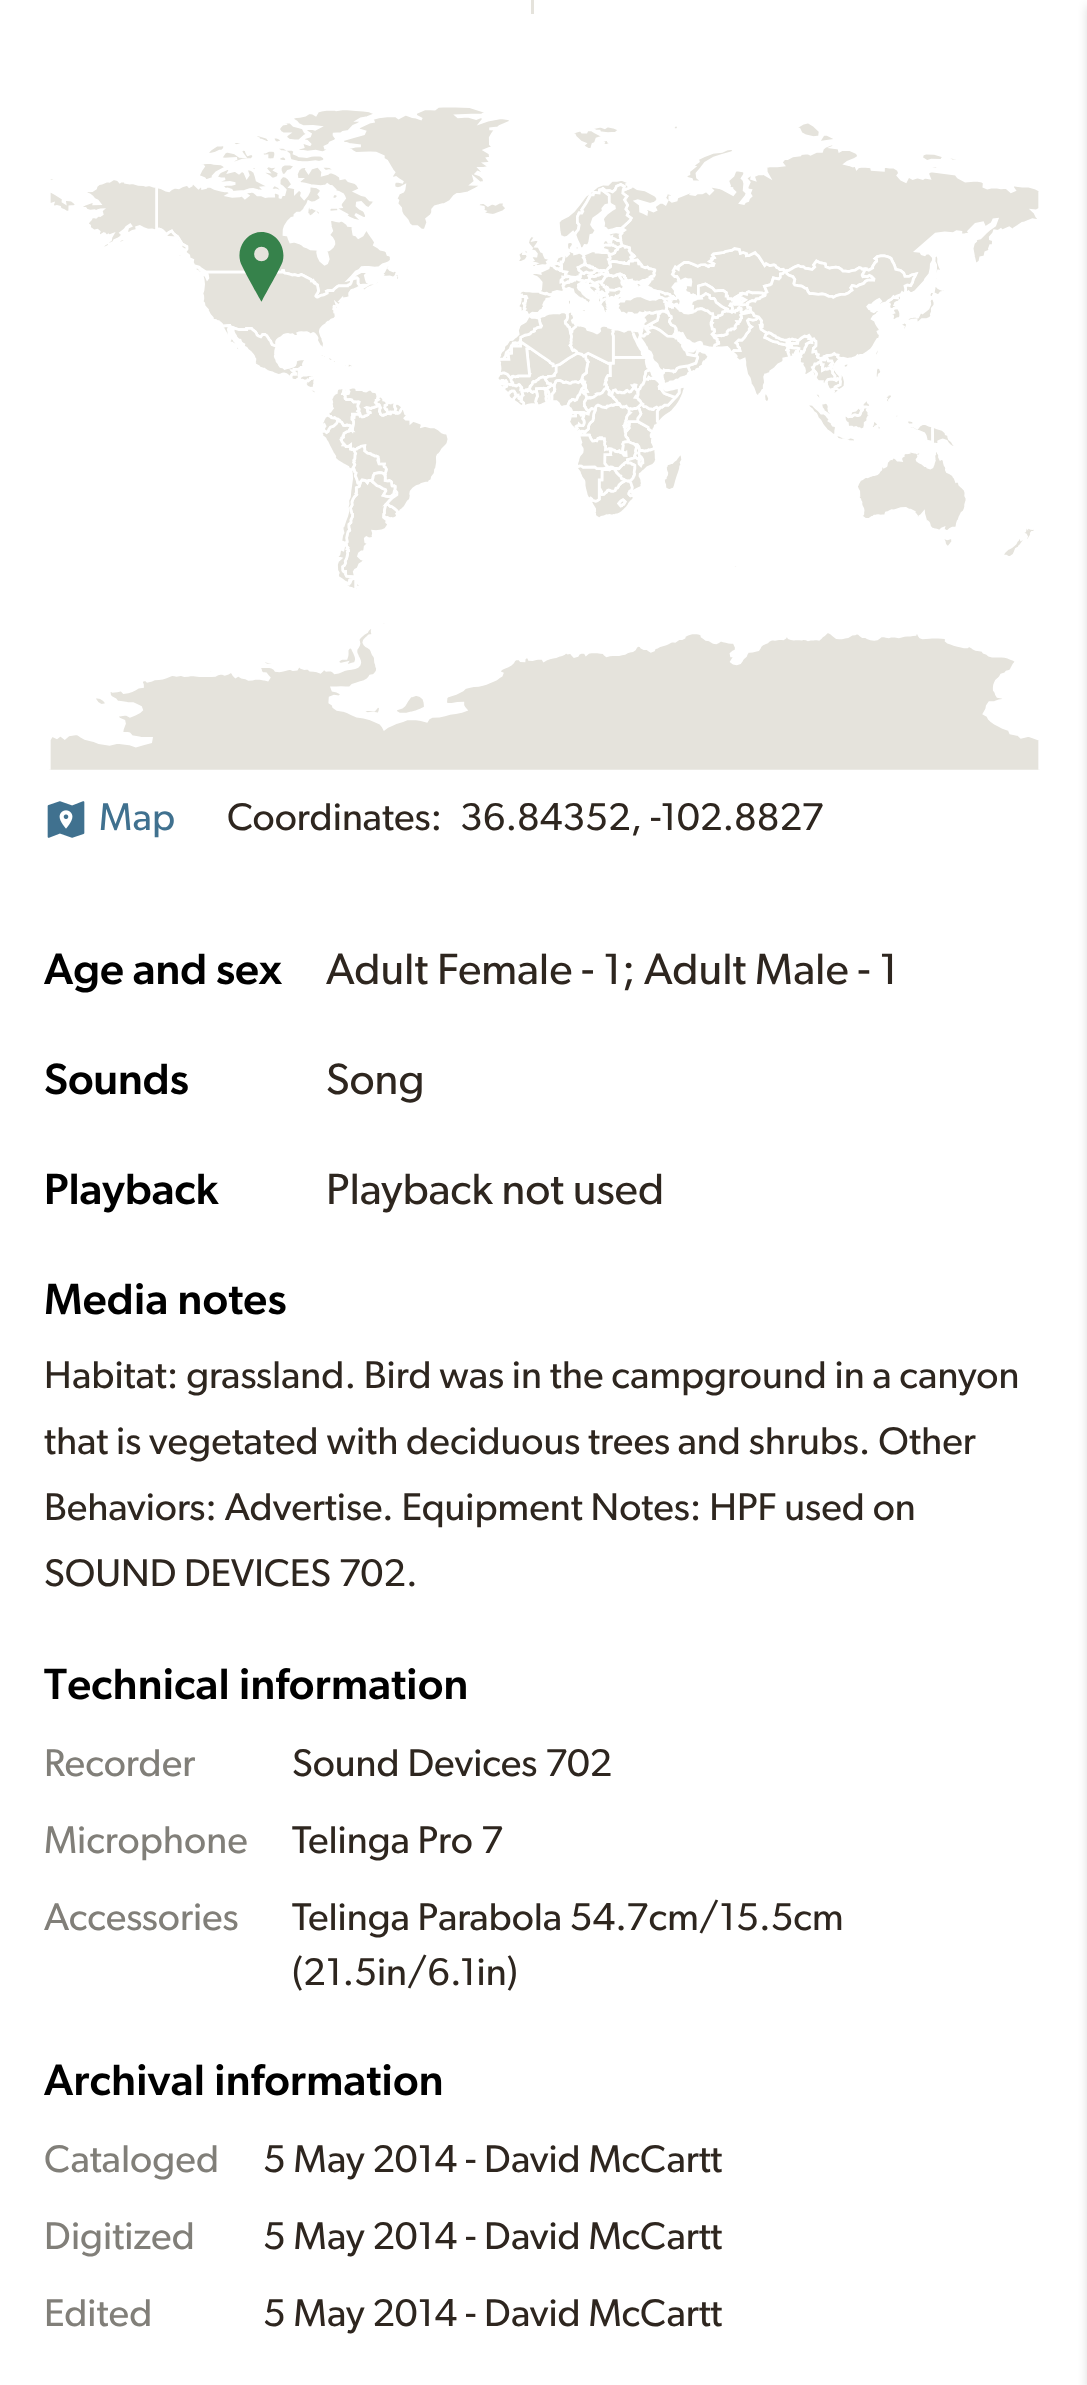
(async () => {
    const canvas = document.querySelector("canvas");
    canvas.width = 1087;
    canvas.height = 2385;
    const context = canvas.getContext("2d");
    context.miterLimit = 4;
    context.fontKerning = "normal";
    function write(s, x, y, font, color) {
        context.font = font;
        context.fillStyle = color;
        context.fillText(s, x, y);
    }
    function block(x, y, w, h, color) {
        context.fillStyle = color;
        context.fillRect(x, y, w, h);
    }
    async function photo(src, x, y, w, h) {
        const img = new Image();
        img.src = src;
        await img.decode();
        context.drawImage(img, x, y, w, h);
    }

    block(0, 0, 1087, 2385, "rgb(255, 255, 255)");
    block(531, 0, 3, 14, "rgb(229, 227, 220)");
    await photo("media/1.png", 49, 107, 991, 663);
    await photo("media/2.png", 47, 801, 38, 37);
    write("Map", 99, 830, "38.75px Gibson", "rgb(64, 113, 143)");
    write("Coordinates:", 227, 830, "38.75px Gibson", "rgb(46, 38, 31)");
    write("36.84352, -102.8827", 460, 830, "38.75px Gibson", "rgb(46, 38, 31)");
    write("Age and sex", 44, 984, "500 44px Gibson", "rgb(0, 0, 0)");
    write("Adult Female - 1; Adult Male - 1", 326, 984, "44px Gibson", "rgb(46, 38, 31)");
    write("Sounds", 44, 1094, "500 44px Gibson", "rgb(0, 0, 0)");
    write("Song", 326, 1094, "44px Gibson", "rgb(46, 38, 31)");
    write("Playback", 44, 1204, "500 44px Gibson", "rgb(0, 0, 0)");
    write("Playback not used", 326, 1204, "44px Gibson", "rgb(46, 38, 31)");
    context.letterSpacing = "0.25px";
    write("Media notes", 44, 1314, "500 44px Gibson", "rgb(0, 0, 0)");
    context.letterSpacing = "0px";
    write("Habitat: grassland. Bird was in the campground in a canyon", 44, 1388, "38.75px Gibson", "rgb(46, 38, 31)");
    write("that is vegetated with deciduous trees and shrubs. Other", 44, 1454, "38.75px Gibson", "rgb(46, 38, 31)");
    write("Behaviors: Advertise. Equipment Notes: HPF used on", 44, 1520, "38.75px Gibson", "rgb(46, 38, 31)");
    write("SOUND DEVICES 702.", 44, 1586, "38.75px Gibson", "rgb(46, 38, 31)");
    context.letterSpacing = "0.25px";
    write("Technical information", 44, 1699, "500 44px Gibson", "rgb(0, 0, 0)");
    context.letterSpacing = "0px";
    write("Recorder", 44, 1776, "38.75px Gibson", "rgb(129, 127, 121)");
    write("Sound Devices 702", 292, 1776, "38.75px Gibson", "rgb(46, 38, 31)");
    write("Microphone", 44, 1853, "38.75px Gibson", "rgb(129, 127, 121)");
    write("Telinga Pro 7", 292, 1853, "38.75px Gibson", "rgb(46, 38, 31)");
    write("Accessories", 44, 1930, "38.75px Gibson", "rgb(129, 127, 121)");
    write("Telinga Parabola 54.7cm/15.5cm", 292, 1930, "38.75px Gibson", "rgb(46, 38, 31)");
    write("(21.5in/6.1in)", 292, 1985, "38.75px Gibson", "rgb(46, 38, 31)");
    context.letterSpacing = "0.25px";
    write("Archival information", 44, 2095, "500 44px Gibson", "rgb(0, 0, 0)");
    context.letterSpacing = "0px";
    write("Cataloged", 44, 2172, "38.75px Gibson", "rgb(129, 127, 121)");
    write("5 May 2014 - David McCartt", 263, 2172, "38.75px Gibson", "rgb(46, 38, 31)");
    write("Digitized", 44, 2249, "38.75px Gibson", "rgb(129, 127, 121)");
    write("5 May 2014 - David McCartt", 263, 2249, "38.75px Gibson", "rgb(46, 38, 31)");
    write("Edited", 44, 2326, "38.75px Gibson", "rgb(129, 127, 121)");
    write("5 May 2014 - David McCartt", 263, 2326, "38.75px Gibson", "rgb(46, 38, 31)");
    context.fillStyle = "rgba(0, 0, 0, 0.2)";
    context.filter = "blur(5.5px)";
    context.beginPath();
    context.rect(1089, 6, 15, 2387);
    context.fill();
    context.filter = "none";
})();
